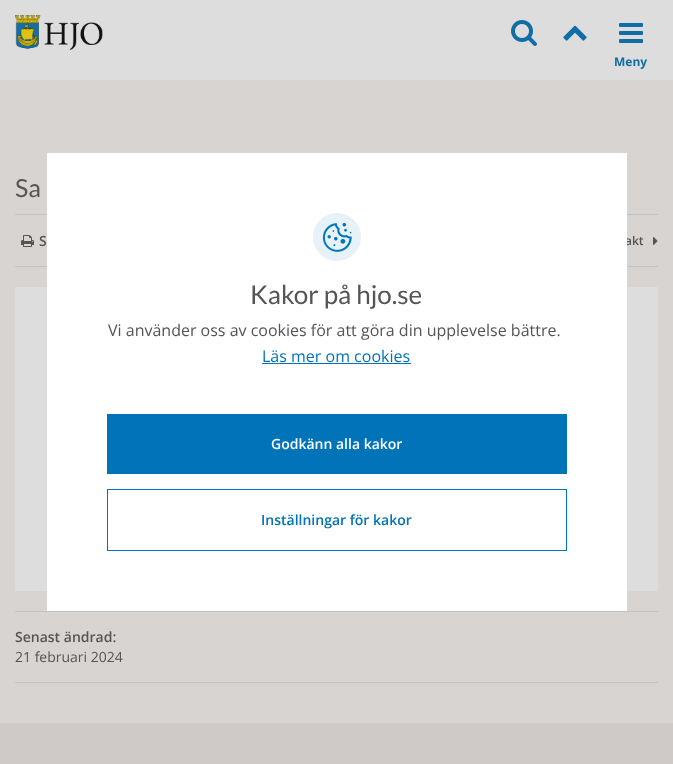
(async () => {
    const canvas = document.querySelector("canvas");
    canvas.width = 673;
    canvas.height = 764;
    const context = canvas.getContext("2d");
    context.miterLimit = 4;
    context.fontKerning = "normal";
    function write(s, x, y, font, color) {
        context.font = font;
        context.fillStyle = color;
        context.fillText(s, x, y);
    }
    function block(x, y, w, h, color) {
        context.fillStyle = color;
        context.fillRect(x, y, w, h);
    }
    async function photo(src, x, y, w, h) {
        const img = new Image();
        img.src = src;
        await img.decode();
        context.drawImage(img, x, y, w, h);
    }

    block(0, 0, 673, 764, "rgb(215, 212, 209)");
    block(0, 0, 673, 80, "rgb(221, 221, 221)");
    await photo("media/1.png", 15, 15, 88, 35);
    await photo("media/2.png", 511, 20, 26, 26);
    await photo("media/3.png", 563, 25, 24, 16);
    await photo("media/4.png", 619, 23, 24, 20);
    write("Meny", 614, 66, "bold 12px Open Sans", "rgb(17, 109, 165)");
    block(15, 214, 643, 1, "rgb(192, 195, 195)");
    write("Sa", 15, 197, "25px Lato", "rgb(85, 85, 85)");
    block(15, 266, 643, 1, "rgb(192, 195, 195)");
    await photo("media/5.png", 21, 235, 13, 12);
    write("S", 39, 246, "600 14px Open Sans", "rgb(85, 85, 85)");
    write("akt", 625, 245, "600 12px Open Sans", "rgb(85, 85, 85)");
    await photo("media/6.png", 653, 237, 5, 8);
    block(15, 287, 643, 304, "rgb(221, 221, 221)");
    block(15, 611, 643, 1, "rgb(192, 195, 195)");
    block(15, 682, 643, 1, "rgb(192, 195, 195)");
    write("Senast ändrad:", 15, 642, "600 14px Open Sans", "rgb(85, 85, 85)");
    write("21 februari 2024", 15, 662, "14px Open Sans", "rgb(85, 85, 85)");
    block(47, 153, 580, 458, "rgb(255, 255, 255)");
    context.fillStyle = "rgb(230, 241, 248)";
    context.beginPath();
    context.arc(337, 237, 24, 0, Math.PI * 2);
    context.fill();
    await photo("media/7.png", 322, 222, 30, 30);
    write("Kakor på hjo.se", 250, 304, "26px Lato", "rgb(85, 85, 85)");
    write("Vi använder oss av cookies för att göra din upplevelse bättre.", 108, 336, "16px Open Sans", "rgb(85, 85, 85)");
    write("Läs mer om cookies", 262, 362, "16px Open Sans", "rgb(0, 115, 185)");
    block(262, 363, 149, 1, "rgb(0, 115, 185)");
    block(107, 414, 460, 60, "rgb(0, 115, 185)");
    write("Godkänn alla kakor", 271, 449, "600 14px Open Sans", "rgb(255, 255, 255)");
    context.strokeStyle = "rgb(0, 115, 185)";
    context.strokeRect(107.5, 489.5, 459, 61);
    write("Inställningar för kakor", 261, 525, "600 14px Open Sans", "rgb(0, 115, 185)");
    block(0, 723, 673, 41, "rgb(207, 202, 199)");
})();
